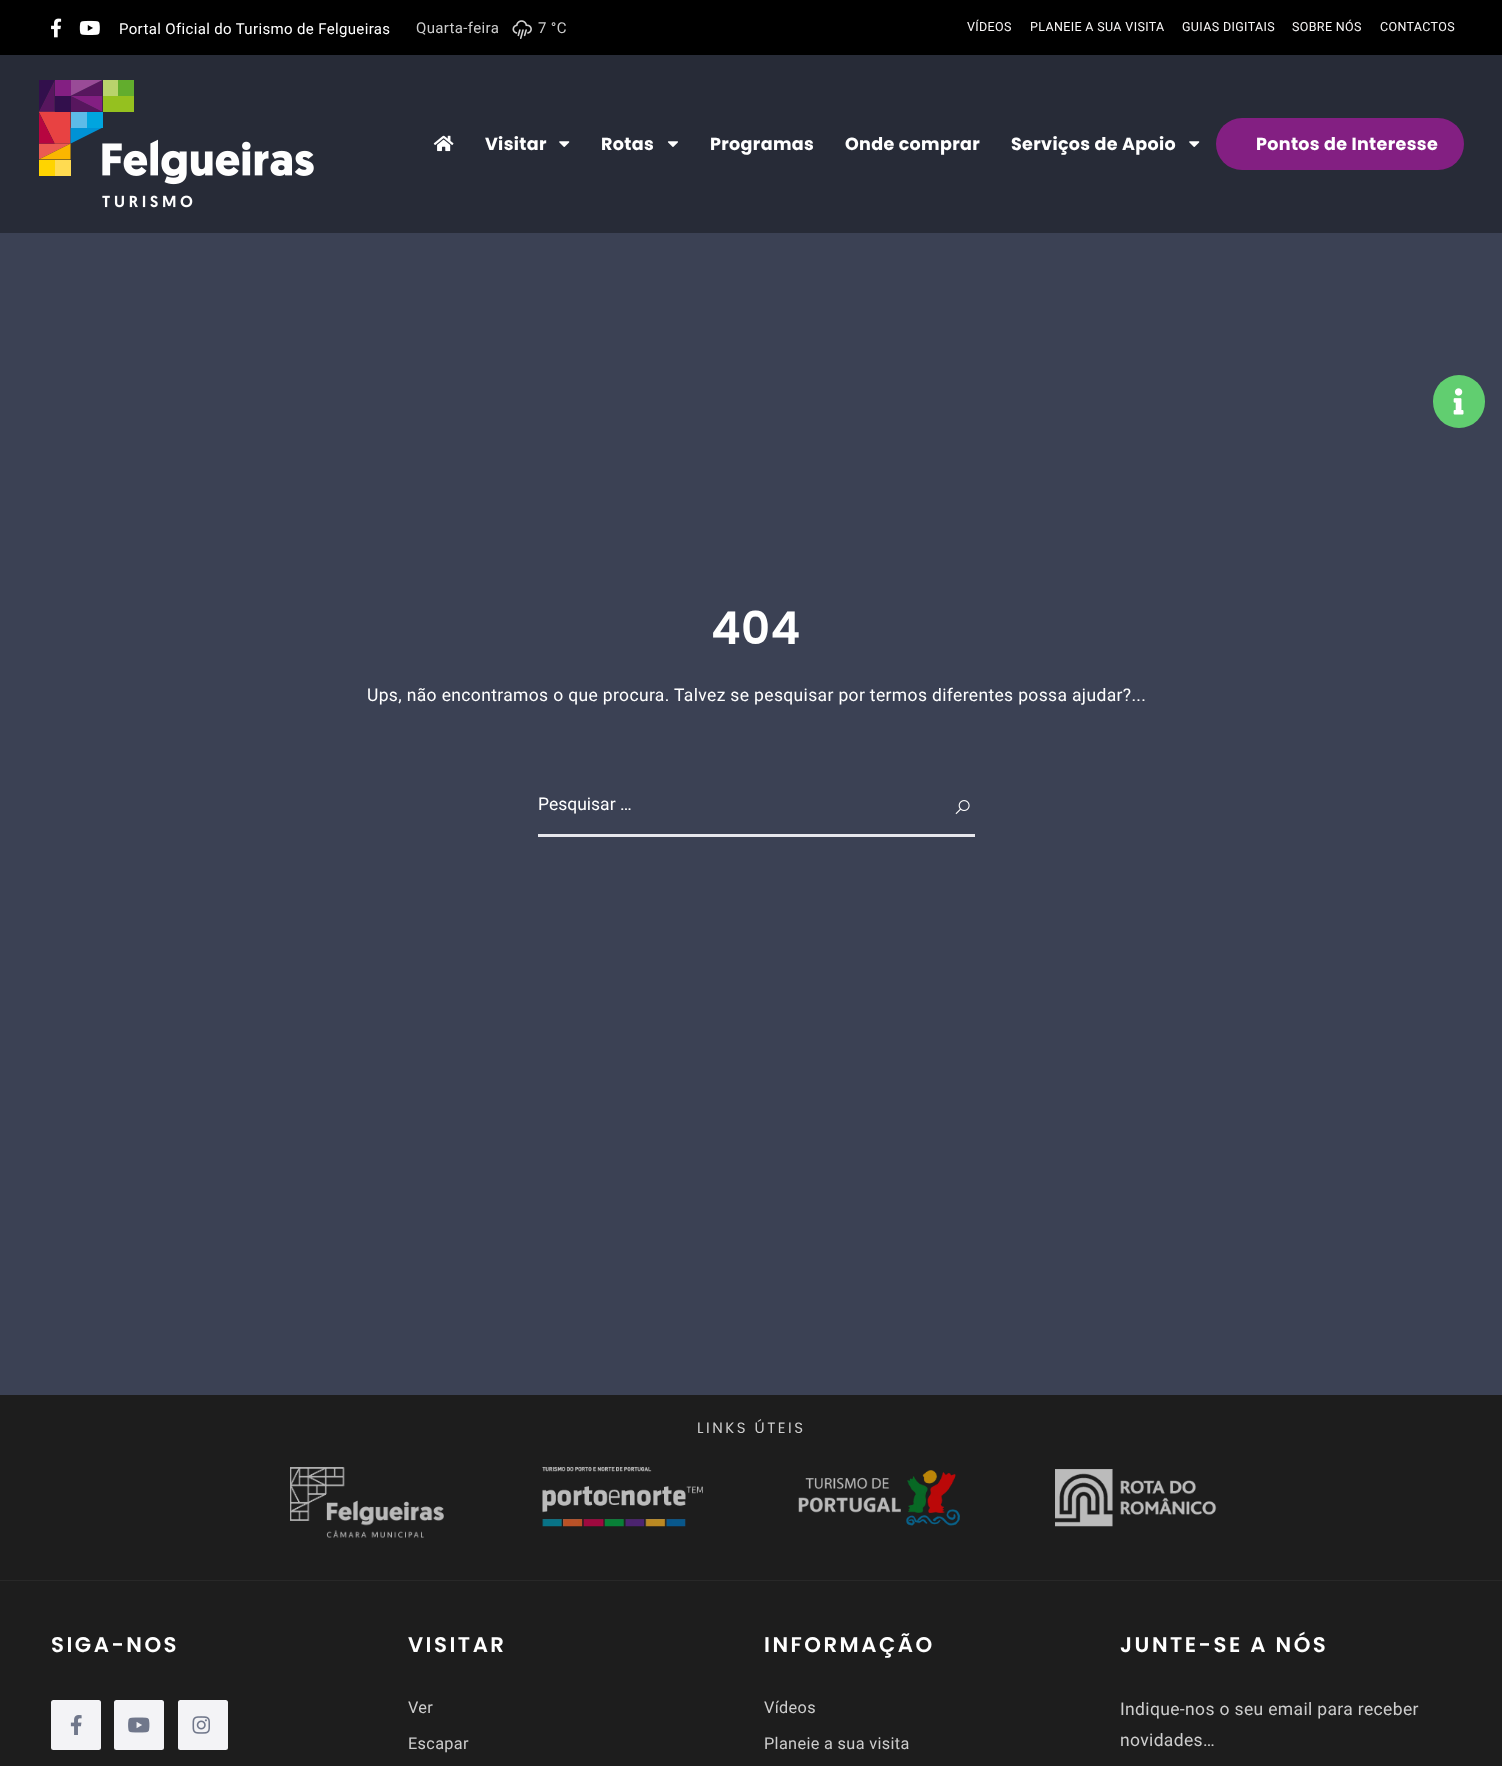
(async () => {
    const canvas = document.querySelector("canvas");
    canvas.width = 1502;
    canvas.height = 1766;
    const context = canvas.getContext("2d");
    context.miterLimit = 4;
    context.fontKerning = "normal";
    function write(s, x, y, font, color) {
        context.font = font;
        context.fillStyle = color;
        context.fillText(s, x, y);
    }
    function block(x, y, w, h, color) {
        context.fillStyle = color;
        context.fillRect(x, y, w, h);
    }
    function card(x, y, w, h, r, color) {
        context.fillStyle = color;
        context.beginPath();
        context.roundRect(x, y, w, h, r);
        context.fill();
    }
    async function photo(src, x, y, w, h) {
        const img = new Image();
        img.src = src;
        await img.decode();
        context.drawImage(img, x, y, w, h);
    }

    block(0, 0, 1502, 1766, "rgb(29, 29, 29)");
    block(0, 0, 1502, 55, "rgb(0, 0, 0)");
    await photo("media/1.png", 51, 18, 11, 20);
    await photo("media/2.png", 79, 20, 21, 15);
    context.letterSpacing = "0.35px";
    write("Portal Oficial do Turismo de Felgueiras", 119, 34, "15px Roboto", "rgb(255, 255, 255)");
    write("Quarta-feira", 416, 33, "15px Roboto", "rgb(205, 205, 205)");
    await photo("media/3.png", 512, 20, 20, 19);
    write("7 °C", 538, 33, "15px Roboto", "rgb(205, 205, 205)");
    write("VÍDEOS", 967, 31, "12.5px Roboto", "rgb(248, 246, 246)");
    write("PLANEIE A SUA VISITA", 1030, 31, "12.5px Roboto", "rgb(248, 246, 246)");
    write("GUIAS DIGITAIS", 1182, 31, "12.5px Roboto", "rgb(248, 246, 246)");
    write("SOBRE NÓS", 1292, 31, "12.5px Roboto", "rgb(248, 246, 246)");
    write("CONTACTOS", 1380, 31, "12.5px Roboto", "rgb(248, 246, 246)");
    block(0, 55, 1502, 178, "rgb(39, 43, 55)");
    await photo("media/4.png", 39, 80, 275, 128);
    await photo("media/5.png", 433, 135, 21, 17);
    write("Visitar", 485, 150, "bold 17.5px Poppins", "rgb(255, 255, 255)");
    await photo("media/6.png", 559, 141, 11, 6);
    write("Rotas", 601, 150, "bold 17.5px Poppins", "rgb(255, 255, 255)");
    await photo("media/7.png", 667, 141, 11, 6);
    write("Programas", 710, 150, "bold 17.5px Poppins", "rgb(255, 255, 255)");
    write("Onde comprar", 845, 150, "bold 17.5px Poppins", "rgb(255, 255, 255)");
    write("Serviços de Apoio", 1011, 150, "bold 17.5px Poppins", "rgb(255, 255, 255)");
    await photo("media/6.png", 1189, 141, 11, 6);
    card(1216, 118, 248, 52, 26, "rgb(131, 31, 130)");
    write("Pontos de Interesse", 1256, 150, "bold 17.5px Poppins", "rgb(255, 255, 255)");
    block(0, 233, 1502, 1162, "rgb(59, 65, 84)");
    card(1433, 375, 52, 53, 26, "rgb(97, 206, 112)");
    await photo("media/8.png", 1453, 388, 11, 27);
    write("404", 711, 644, "600 45px Poppins", "rgb(255, 255, 255)");
    write("Ups, não encontramos o que procura. Talvez se pesquisar por termos diferentes possa ajudar?...", 367, 701, "17.5px Roboto", "rgb(255, 255, 255)");
    block(538, 834, 437, 3, "rgb(231, 231, 237)");
    context.letterSpacing = "0px";
    write("Pesquisar …", 538, 810, "17.5px Roboto", "rgb(255, 255, 255)");
    await photo("media/9.png", 955, 800, 15, 15);
    block(0, 1580, 1502, 1, "rgb(40, 40, 40)");
    context.letterSpacing = "2.5px";
    write("LINKS ÚTEIS", 697, 1433, "15px Poppins", "rgb(205, 205, 205)");
    await photo("media/10.png", 290, 1467, 154, 71);
    await photo("media/11.png", 542, 1467, 161, 60);
    await photo("media/12.png", 798, 1470, 162, 56);
    await photo("media/13.png", 1055, 1469, 162, 58);
    write("SIGA-NOS", 51, 1652, "600 21.25px Poppins", "rgb(255, 255, 255)");
    card(51, 1700, 50, 50, 2.5, "rgb(243, 243, 246)");
    await photo("media/14.png", 70, 1715, 12, 20);
    card(114, 1700, 50, 50, 2.5, "rgb(243, 243, 246)");
    await photo("media/15.png", 128, 1717, 22, 16);
    card(178, 1700, 50, 50, 2.5, "rgb(243, 243, 246)");
    await photo("media/16.png", 192, 1716, 18, 18);
    write("VISITAR", 408, 1652, "600 21.25px Poppins", "rgb(255, 255, 255)");
    context.letterSpacing = "0.35px";
    write("Ver", 408, 1713, "16.25px Roboto", "rgb(205, 205, 205)");
    write("Escapar", 408, 1749, "16.25px Roboto", "rgb(205, 205, 205)");
    context.letterSpacing = "2.5px";
    write("INFORMAÇÃO", 764, 1652, "600 21.25px Poppins", "rgb(255, 255, 255)");
    context.letterSpacing = "0.35px";
    write("Vídeos", 764, 1713, "16.25px Roboto", "rgb(205, 205, 205)");
    write("Planeie a sua visita", 764, 1749, "16.25px Roboto", "rgb(205, 205, 205)");
    context.letterSpacing = "2.5px";
    write("JUNTE-SE A NÓS", 1120, 1652, "600 21.25px Poppins", "rgb(255, 255, 255)");
    context.letterSpacing = "0.35px";
    write("Indique-nos o seu email para receber", 1120, 1715, "17.5px Roboto", "rgb(205, 205, 205)");
    write("novidades…", 1120, 1746, "17.5px Roboto", "rgb(205, 205, 205)");
})();
